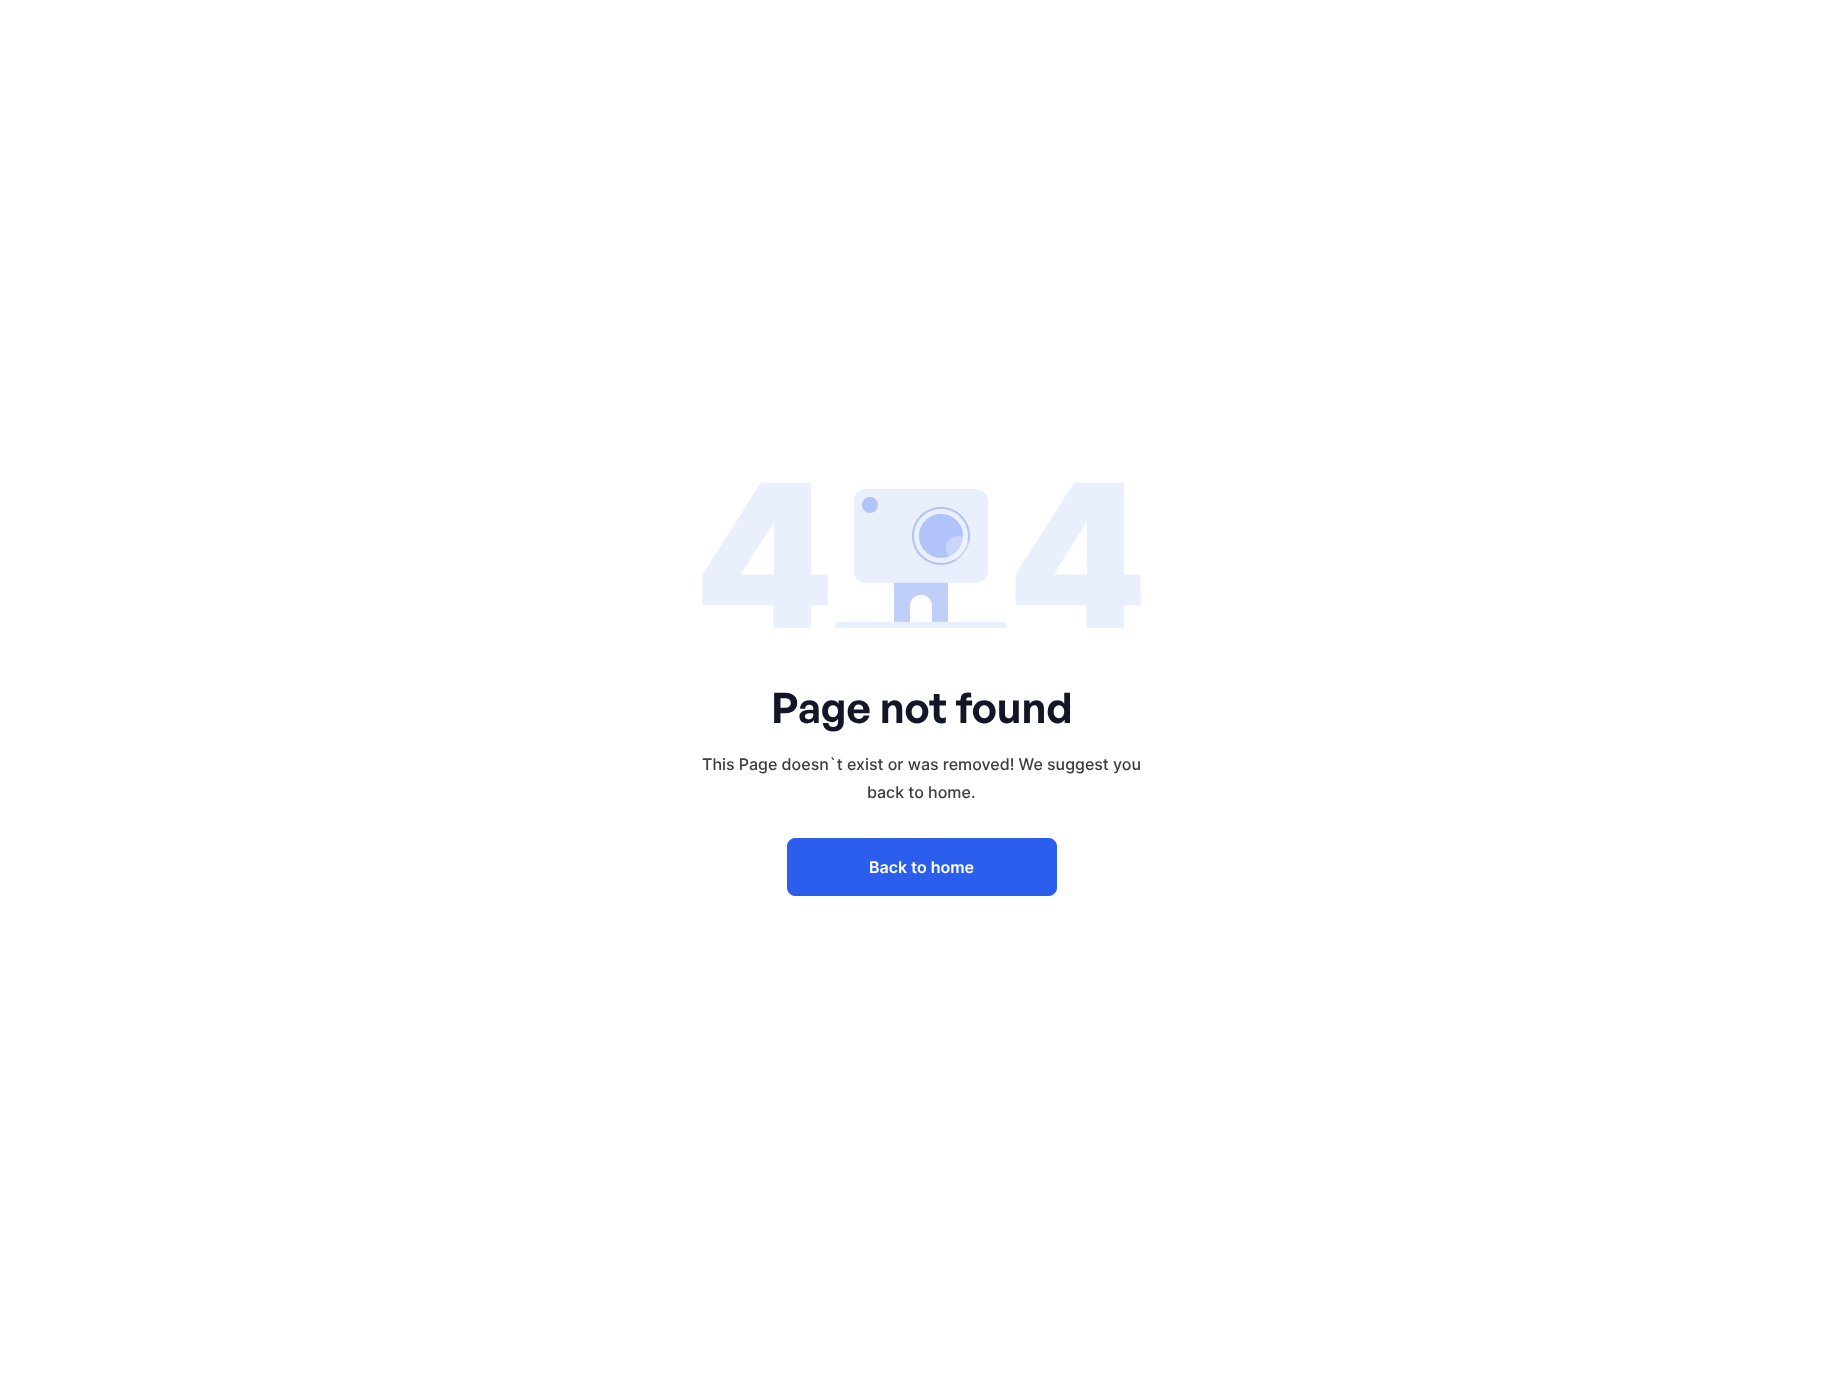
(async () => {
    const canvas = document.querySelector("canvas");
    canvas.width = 1843;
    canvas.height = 1378;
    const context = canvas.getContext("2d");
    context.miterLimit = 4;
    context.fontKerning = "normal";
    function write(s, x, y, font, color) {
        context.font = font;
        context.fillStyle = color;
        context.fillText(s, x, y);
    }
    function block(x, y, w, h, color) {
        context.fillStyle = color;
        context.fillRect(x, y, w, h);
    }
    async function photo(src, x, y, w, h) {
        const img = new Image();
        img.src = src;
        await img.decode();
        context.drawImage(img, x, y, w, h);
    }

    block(0, 0, 1843, 1378, "rgb(255, 255, 255)");
    await photo("media/1.png", 702, 482, 439, 146);
    write("Page not found", 771, 723, "600 42px General Sans", "rgb(18, 22, 39)");
    write("This Page doesn`t exist or was removed! We suggest you", 702, 770, "500 16px Inter", "rgb(61, 61, 63)");
    write("back to home.", 867, 798, "500 16px Inter", "rgb(61, 61, 63)");
    context.fillStyle = "rgb(44, 94, 237)";
    context.beginPath();
    context.roundRect(787.5, 838.5, 269, 57, 7.5);
    context.fill();
    context.strokeStyle = "rgb(44, 94, 237)";
    context.stroke();
    write("Back to home", 869, 873, "600 16px Inter", "rgb(255, 255, 255)");
})();
